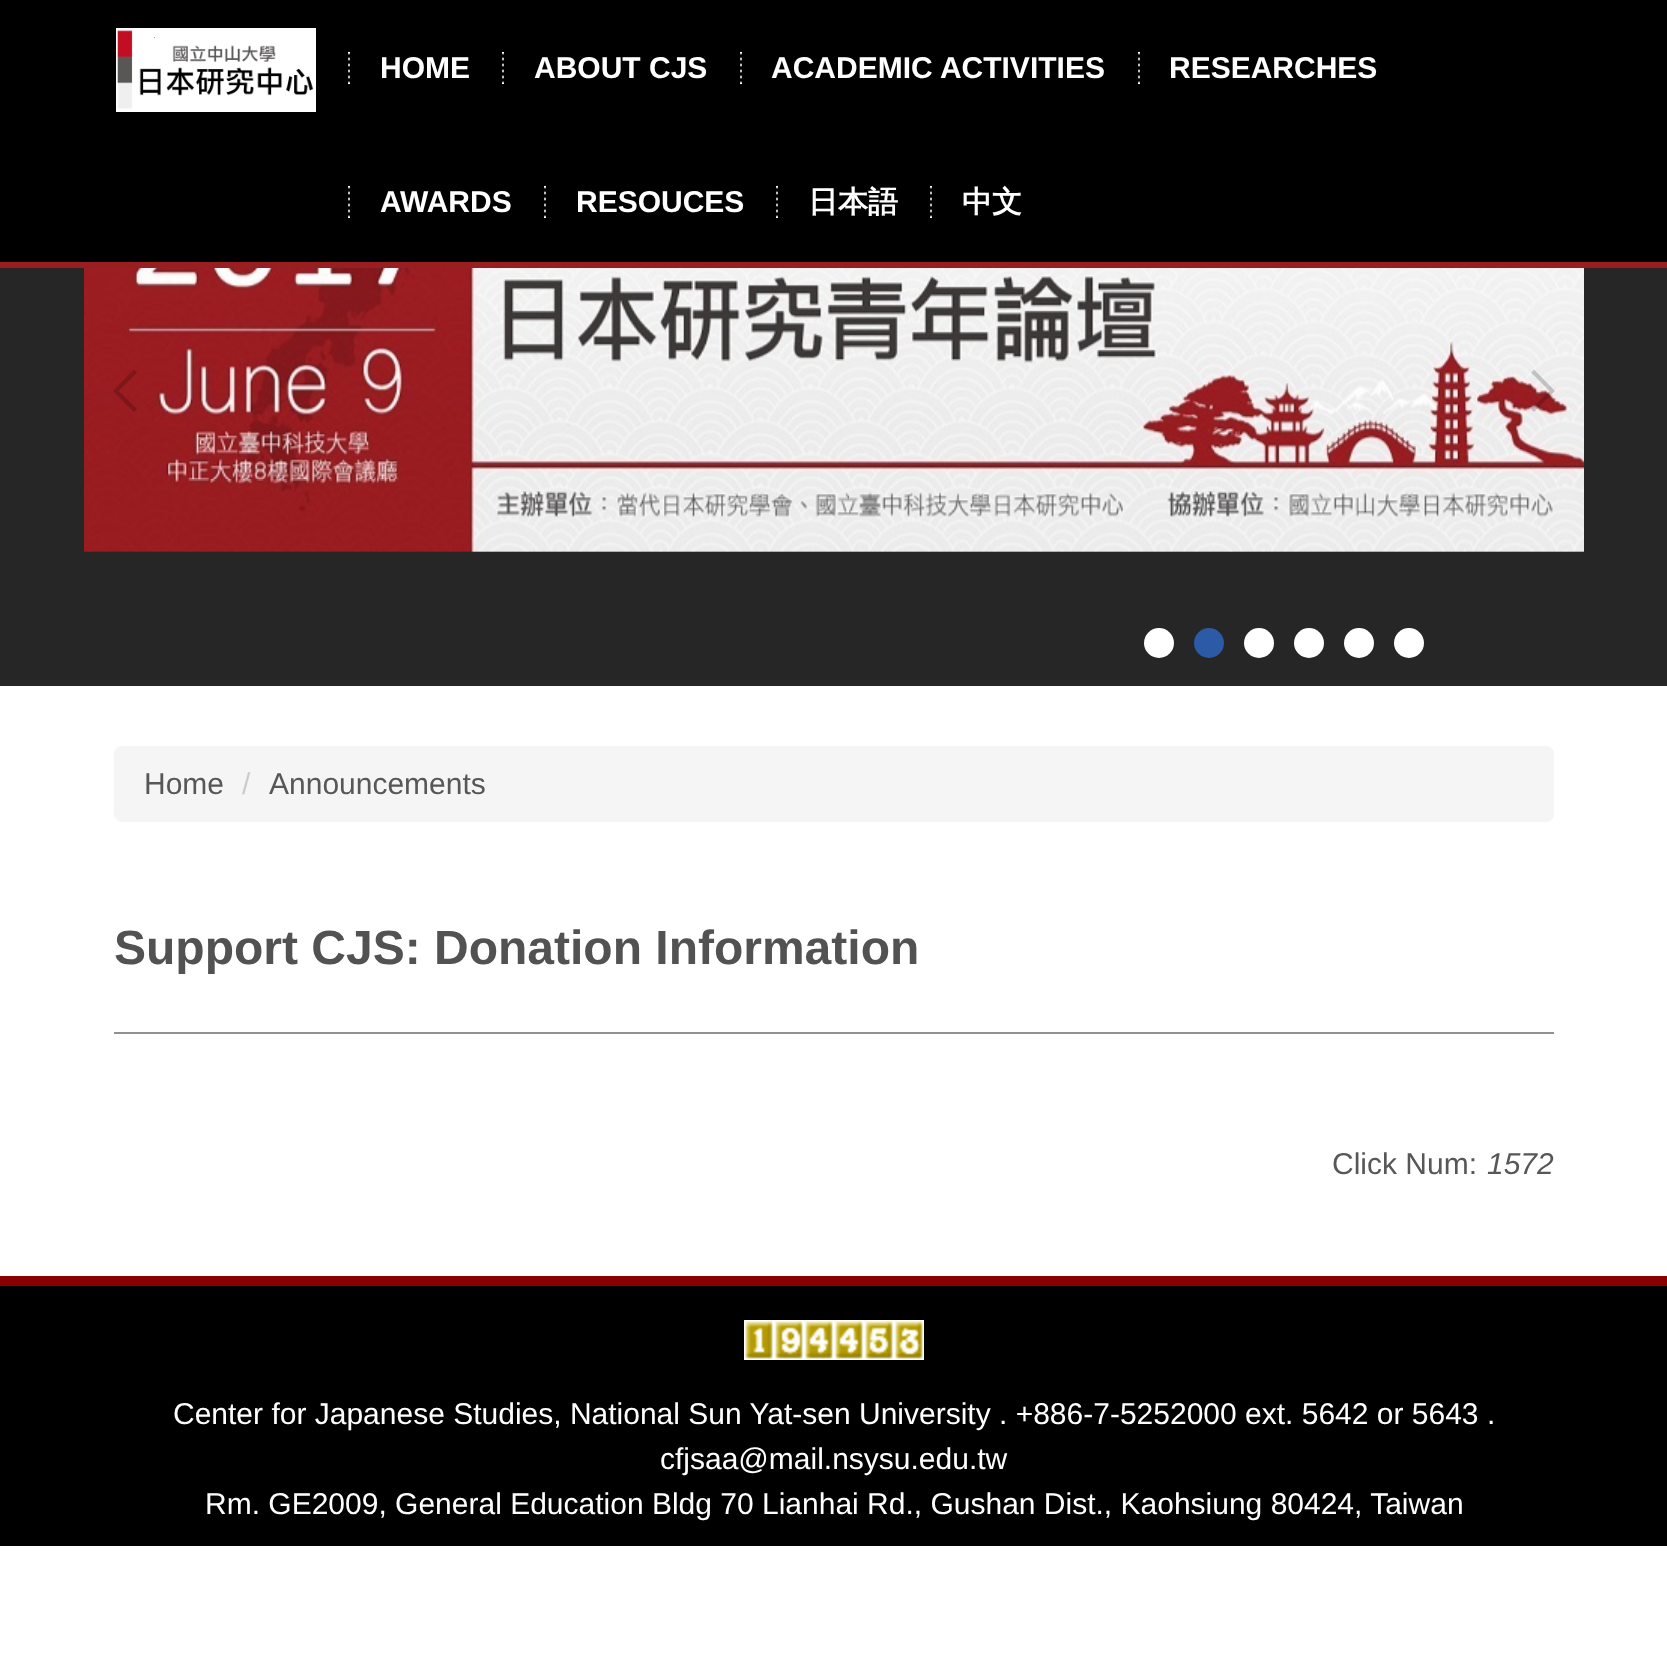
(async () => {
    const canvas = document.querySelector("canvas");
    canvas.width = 1667;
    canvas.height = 1674;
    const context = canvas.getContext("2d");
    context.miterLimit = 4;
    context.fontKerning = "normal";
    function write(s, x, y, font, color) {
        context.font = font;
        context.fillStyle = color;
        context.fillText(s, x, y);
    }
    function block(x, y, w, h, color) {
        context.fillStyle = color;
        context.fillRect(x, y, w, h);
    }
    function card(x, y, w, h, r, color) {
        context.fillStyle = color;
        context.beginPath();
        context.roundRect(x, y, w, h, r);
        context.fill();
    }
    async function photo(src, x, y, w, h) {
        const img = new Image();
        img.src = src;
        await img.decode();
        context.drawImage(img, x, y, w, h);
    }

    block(0, 0, 1667, 1674, "rgb(255, 255, 255)");
    block(0, 268, 1667, 418, "rgb(38, 38, 38)");
    block(0, 0, 1667, 262, "rgb(0, 0, 0)");
    block(0, 262, 1667, 6, "rgb(153, 30, 33)");
    await photo("media/1.png", 116, 28, 200, 84);
    await photo("media/2.png", 348, 52, 2, 32);
    write("HOME", 380, 78, "bold 30px Liberation Sans", "rgb(255, 255, 255)");
    await photo("media/2.png", 502, 52, 2, 32);
    write("ABOUT CJS", 534, 78, "bold 30px Liberation Sans", "rgb(255, 255, 255)");
    await photo("media/2.png", 740, 52, 2, 32);
    write("ACADEMIC ACTIVITIES", 771, 78, "bold 30px Liberation Sans", "rgb(255, 255, 255)");
    await photo("media/2.png", 1138, 52, 2, 32);
    write("RESEARCHES", 1169, 78, "bold 30px Liberation Sans", "rgb(255, 255, 255)");
    await photo("media/2.png", 348, 186, 2, 32);
    write("AWARDS", 380, 212, "bold 30px Liberation Sans", "rgb(255, 255, 255)");
    await photo("media/2.png", 544, 186, 2, 32);
    write("RESOUCES", 576, 212, "bold 30px Liberation Sans", "rgb(255, 255, 255)");
    await photo("media/2.png", 776, 186, 2, 32);
    write("日本語", 808, 212, "bold 30px WenQuanYi Zen Hei", "rgb(255, 255, 255)");
    await photo("media/2.png", 930, 186, 2, 32);
    write("中文", 962, 212, "bold 30px WenQuanYi Zen Hei", "rgb(255, 255, 255)");
    await photo("media/3.png", 84, 268, 1500, 284);
    context.fillStyle = "rgba(0, 0, 0, 0.19)";
    context.beginPath();
    context.moveTo(134, 412);
    context.lineTo(113, 391);
    context.lineTo(118.5, 391);
    context.lineTo(137, 409);
    context.closePath();
    context.fill();
    context.fillStyle = "rgb(125, 23, 26)";
    context.beginPath();
    context.moveTo(113, 391);
    context.lineTo(134, 369.5);
    context.lineTo(137, 372.5);
    context.lineTo(118.5, 391);
    context.closePath();
    context.fill();
    context.fillStyle = "rgba(0, 0, 0, 0.19)";
    context.beginPath();
    context.moveTo(1534, 369.5);
    context.lineTo(1555, 391);
    context.lineTo(1549.5, 391);
    context.lineTo(1531, 372.5);
    context.closePath();
    context.moveTo(1555, 391);
    context.lineTo(1534, 412);
    context.lineTo(1531, 409);
    context.lineTo(1549.5, 391);
    context.closePath();
    context.fill();
    context.fillStyle = "rgb(255, 255, 255)";
    context.beginPath();
    context.arc(1159, 643, 15, 0, Math.PI * 2);
    context.fill();
    context.fillStyle = "rgb(44, 90, 167)";
    context.beginPath();
    context.arc(1209, 643, 15, 0, Math.PI * 2);
    context.fill();
    context.fillStyle = "rgb(255, 255, 255)";
    context.beginPath();
    context.arc(1259, 643, 15, 0, Math.PI * 2);
    context.fill();
    context.beginPath();
    context.arc(1309, 643, 15, 0, Math.PI * 2);
    context.fill();
    context.beginPath();
    context.arc(1359, 643, 15, 0, Math.PI * 2);
    context.fill();
    context.beginPath();
    context.arc(1409, 643, 15, 0, Math.PI * 2);
    context.fill();
    card(114, 746, 1440, 76, 8, "rgb(245, 245, 245)");
    write("Home", 144, 794, "30px Liberation Sans", "rgb(87, 87, 88)");
    write("/", 242, 794, "30px Liberation Sans", "rgb(204, 204, 204)");
    write("Announcements", 269, 794, "30px Liberation Sans", "rgb(87, 87, 88)");
    block(114, 1032, 1440, 2, "rgb(143, 144, 145)");
    write("Support CJS: Donation Information", 114, 964, "bold 48px Liberation Sans", "rgb(82, 82, 82)");
    write("Click Num:", 1332, 1174, "30px Liberation Sans", "rgb(87, 87, 88)");
    write("1572", 1487, 1174, "italic 30px Liberation Sans", "rgb(87, 87, 88)");
    block(0, 1286, 1667, 260, "rgb(0, 0, 0)");
    block(0, 1276, 1667, 10, "rgb(138, 0, 0)");
    await photo("media/4.png", 744, 1320, 30, 40);
    await photo("media/5.png", 774, 1320, 30, 40);
    await photo("media/6.png", 804, 1320, 30, 40);
    await photo("media/6.png", 834, 1320, 30, 40);
    await photo("media/7.png", 864, 1320, 30, 40);
    await photo("media/8.png", 894, 1320, 30, 40);
    write("Center for Japanese Studies, National Sun Yat-sen University . +886-7-5252000 ext. 5642 or 5643 .", 173, 1424, "30px Liberation Sans", "rgb(255, 255, 255)");
    write("cfjsaa@mail.nsysu.edu.tw", 660, 1469, "30px Liberation Sans", "rgb(255, 255, 255)");
    write("Rm. GE2009, General Education Bldg 70 Lianhai Rd., Gushan Dist., Kaohsiung 80424, Taiwan", 205, 1514, "30px Liberation Sans", "rgb(255, 255, 255)");
})();
